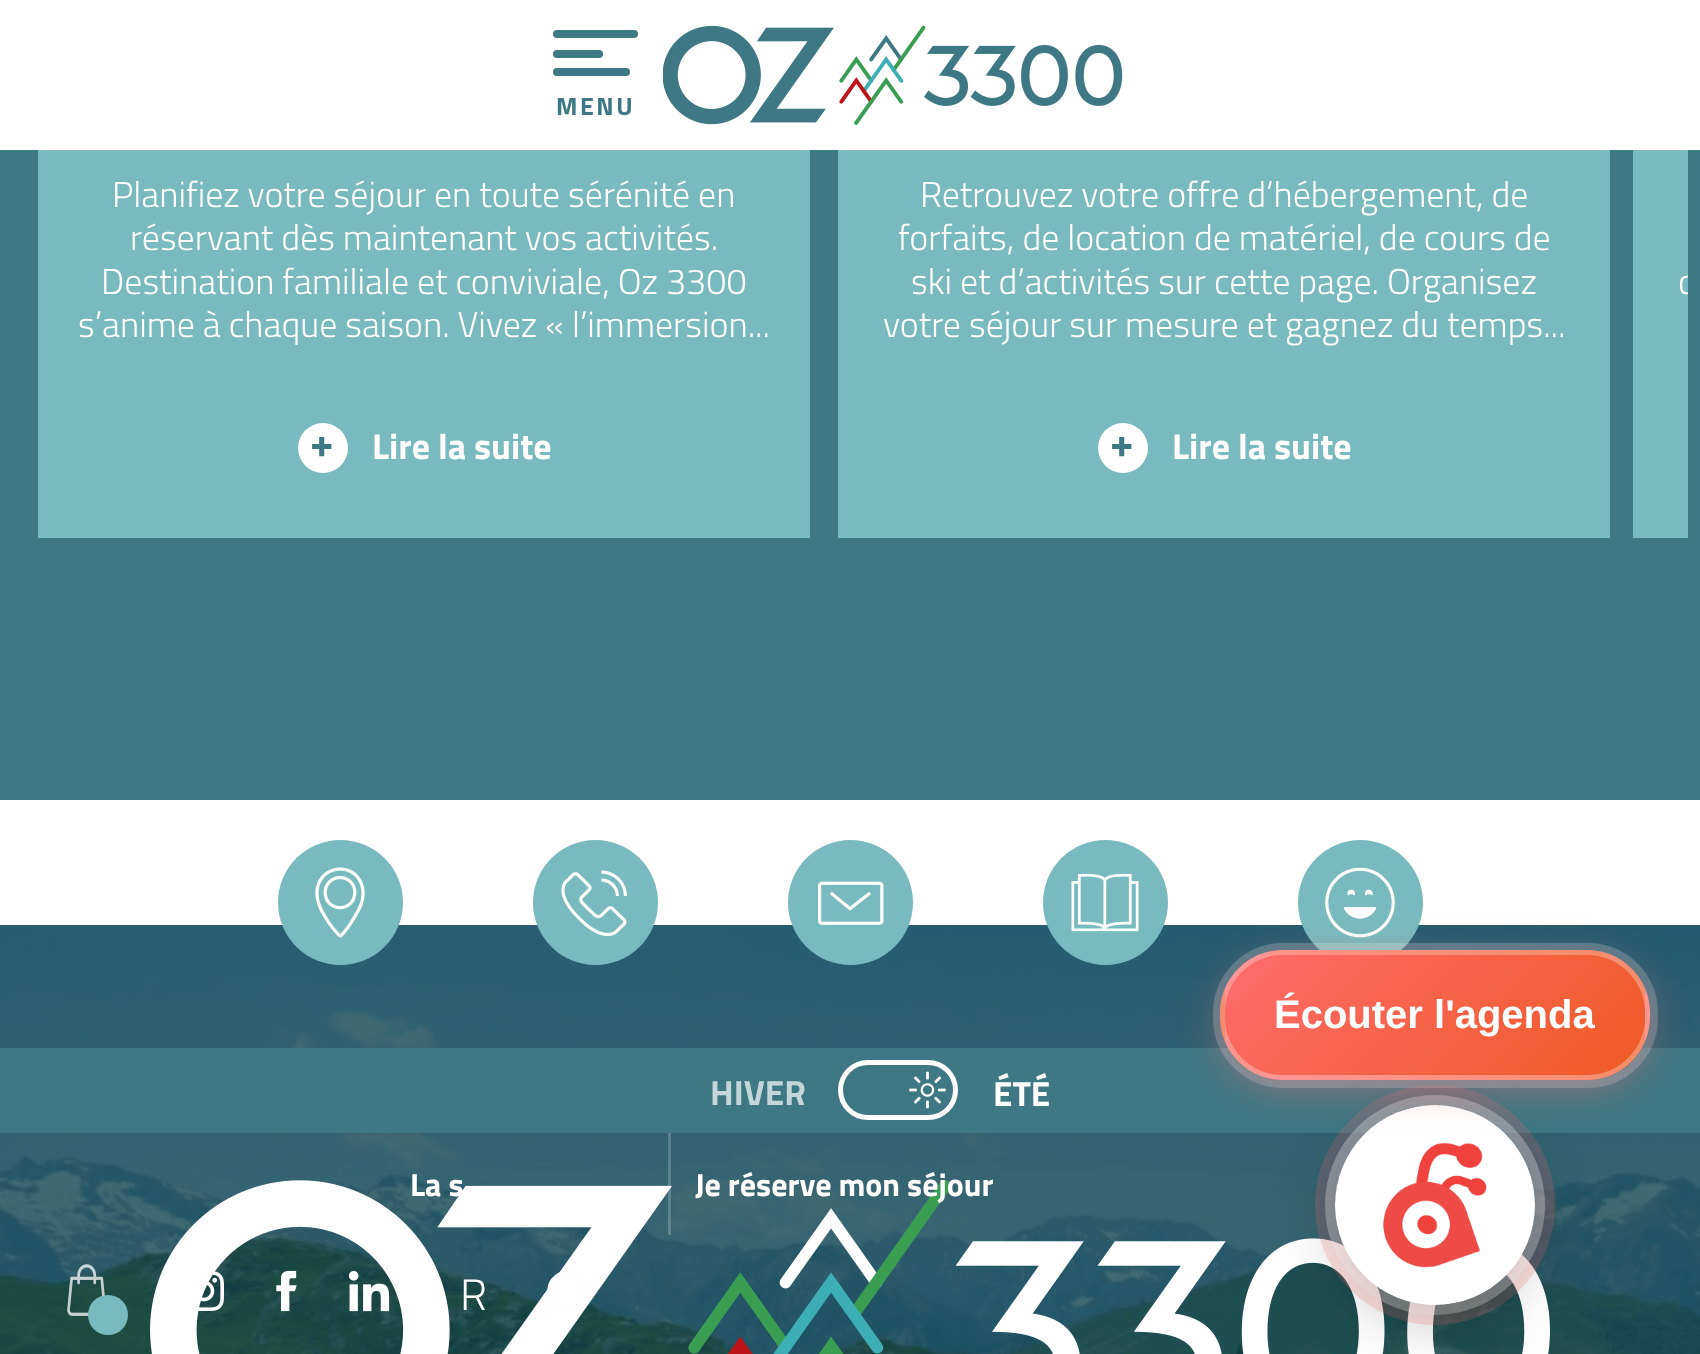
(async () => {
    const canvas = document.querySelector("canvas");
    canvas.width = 1700;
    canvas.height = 1354;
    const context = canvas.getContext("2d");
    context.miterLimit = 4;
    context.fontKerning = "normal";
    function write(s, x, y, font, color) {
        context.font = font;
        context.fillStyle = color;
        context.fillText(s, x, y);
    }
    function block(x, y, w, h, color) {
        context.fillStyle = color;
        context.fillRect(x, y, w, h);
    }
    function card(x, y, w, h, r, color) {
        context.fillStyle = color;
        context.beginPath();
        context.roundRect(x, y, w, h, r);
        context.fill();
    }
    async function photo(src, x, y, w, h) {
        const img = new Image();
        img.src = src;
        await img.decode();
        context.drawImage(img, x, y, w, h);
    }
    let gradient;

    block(0, 0, 1700, 1354, "rgb(255, 255, 255)");
    card(553, 30, 85, 8, 4, "rgb(62, 120, 133)");
    card(553, 50, 50, 8, 4, "rgb(62, 120, 133)");
    card(553, 68, 77, 8, 4, "rgb(62, 120, 133)");
    context.letterSpacing = "2.5px";
    write("MENU", 556, 115, "bold 25px Titillium Web", "rgb(62, 120, 133)");
    await photo("media/1.png", 663, 25, 460, 100);
    await photo("media/7.png", 0, 925, 1700, 429);
    block(0, 1048, 1700, 85, "rgb(62, 120, 133)");
    context.letterSpacing = "0px";
    write("HIVER", 710, 1105, "bold 35px Titillium Web", "rgb(196, 214, 218)");
    context.beginPath();
    context.roundRect(840.5, 1062.5, 115, 55, 27.5);
    context.strokeStyle = "rgb(254, 254, 254)";
    context.lineWidth = 5;
    context.stroke();
    await photo("media/2.png", 909, 1071, 37, 38);
    write("ÉTÉ", 993, 1106, "bold 35px Titillium Web", "rgb(254, 254, 254)");
    await photo("media/13.png", 150, 1180, 1400, 174);
    write("La s", 410, 1196, "bold 32px Titillium Web", "rgb(254, 254, 254)");
    block(668, 1133, 3, 102, "rgba(254, 254, 254, 0.2)");
    write("Je réserve mon séjour", 695, 1196, "bold 32px Titillium Web", "rgb(254, 254, 254)");
    await photo("media/3.png", 67, 1264, 38, 52);
    context.fillStyle = "rgb(120, 186, 191)";
    context.beginPath();
    context.arc(108, 1315, 20, 0, Math.PI * 2);
    context.fill();
    await photo("media/4.png", 198, 1271, 26, 40);
    await photo("media/5.png", 276, 1270, 21, 42);
    await photo("media/6.png", 348, 1271, 42, 41);
    write("R", 460, 1310, "300 44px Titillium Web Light", "rgb(254, 254, 254)");
    context.beginPath();
    context.moveTo(582, 1276);
    context.bezierCurveTo(566, 1260, 539, 1280, 550, 1299);
    context.bezierCurveTo(548, 1302, 533, 1313, 543, 1317);
    context.bezierCurveTo(545, 1318, 546, 1318, 548, 1317);
    context.lineTo(558, 1307);
    context.bezierCurveTo(578, 1318, 598, 1292, 582, 1276);
    context.closePath();
    context.moveTo(578, 1300);
    context.bezierCurveTo(564, 1314, 544, 1293, 557, 1279);
    context.bezierCurveTo(571, 1266, 592, 1286, 578, 1300);
    context.closePath();
    context.fill();
    block(0, 150, 1700, 650, "rgb(62, 120, 133)");
    block(38, 150, 772, 388, "rgb(120, 186, 191)");
    write("Planifiez votre séjour en toute sérénité en", 112, 207, "300 36px Titillium Web Light", "rgb(254, 254, 254)");
    write("réservant dès maintenant vos activités.", 130, 250, "300 36px Titillium Web Light", "rgb(254, 254, 254)");
    write("Destination familiale et conviviale, Oz 3300", 101, 294, "300 36px Titillium Web Light", "rgb(254, 254, 254)");
    write("s’anime à chaque saison. Vivez « l’immersion...", 78, 337, "300 36px Titillium Web Light", "rgb(254, 254, 254)");
    context.beginPath();
    context.arc(323, 448, 25, 0, Math.PI * 2);
    context.fill();
    write("+", 310, 457, "bold 42px Titillium Web", "rgb(62, 120, 133)");
    write("Lire la suite", 372, 459, "bold 36px Titillium Web", "rgb(254, 254, 254)");
    block(838, 150, 772, 388, "rgb(120, 186, 191)");
    write("Retrouvez votre offre d’hébergement, de", 920, 207, "300 36px Titillium Web Light", "rgb(254, 254, 254)");
    write("forfaits, de location de matériel, de cours de", 898, 250, "300 36px Titillium Web Light", "rgb(254, 254, 254)");
    write("ski et d’activités sur cette page. Organisez", 911, 294, "300 36px Titillium Web Light", "rgb(254, 254, 254)");
    write("votre séjour sur mesure et gagnez du temps...", 883, 337, "300 36px Titillium Web Light", "rgb(254, 254, 254)");
    context.beginPath();
    context.arc(1123, 448, 25, 0, Math.PI * 2);
    context.fill();
    write("+", 1110, 457, "bold 42px Titillium Web", "rgb(62, 120, 133)");
    write("Lire la suite", 1172, 459, "bold 36px Titillium Web", "rgb(254, 254, 254)");
    block(1633, 150, 55, 388, "rgb(120, 186, 191)");
    context.save();
    context.beginPath();
    context.rect(38, 68, 1650, 470);
    context.clip();
    write("c", 1678, 294, "300 36px Titillium Web Light", "rgb(254, 254, 254)");
    context.restore();
    context.beginPath();
    context.arc(340.5, 902.5, 62.5, 0, Math.PI * 2);
    context.fill();
    await photo("media/8.png", 315, 867, 50, 71);
    context.beginPath();
    context.arc(595.5, 902.5, 62.5, 0, Math.PI * 2);
    context.fill();
    await photo("media/9.png", 561, 870, 66, 67);
    context.beginPath();
    context.arc(850.5, 902.5, 62.5, 0, Math.PI * 2);
    context.fill();
    await photo("media/10.png", 818, 881, 66, 44);
    context.beginPath();
    context.arc(1105.5, 902.5, 62.5, 0, Math.PI * 2);
    context.fill();
    await photo("media/11.png", 1071, 873, 68, 59);
    context.beginPath();
    context.arc(1360.5, 902.5, 62.5, 0, Math.PI * 2);
    context.fill();
    await photo("media/12.png", 1325, 867, 70, 71);
    context.beginPath();
    context.arc(1435, 1205, 110, 0, Math.PI * 2);
    context.strokeStyle = "rgba(255, 107, 107, 0.2)";
    context.lineWidth = 20;
    context.stroke();
    context.beginPath();
    context.arc(1435, 1205, 105, 0, Math.PI * 2);
    context.strokeStyle = "rgba(255, 255, 255, 0.3)";
    context.lineWidth = 10;
    context.stroke();
    context.fillStyle = "rgba(0, 0, 0, 0.2)";
    context.filter = "blur(31px)";
    context.beginPath();
    context.roundRect(1335, 1125, 200, 200, 100);
    context.fill();
    context.filter = "none";
    context.beginPath();
    context.roundRect(1217, 947, 437, 137, 66);
    context.strokeStyle = "rgba(255, 255, 255, 0.2)";
    context.lineWidth = 8;
    context.stroke();
    context.fillStyle = "rgb(255, 255, 255)";
    context.beginPath();
    context.arc(1435, 1205, 100, 0, Math.PI * 2);
    context.fill();
    await photo("media/14.png", 1383, 1142, 104, 126);
    context.fillStyle = "rgba(255, 107, 107, 0.4)";
    context.filter = "blur(19px)";
    context.beginPath();
    context.roundRect(1220, 960, 430, 130, 63);
    context.fill();
    context.filter = "none";
    context.save();
    context.beginPath();
    context.roundRect(1220, 950, 430, 130, 63);
    context.clip();
    gradient = context.createLinearGradient(1300, 760, 1570, 1030);
    gradient.addColorStop(0, "rgb(255, 107, 107)");
    gradient.addColorStop(1, "rgb(238, 90, 36)");
    context.fillStyle = gradient;
    context.fillRect(1258, 950, 354, 5);
    gradient = context.createLinearGradient(880, 880, 1150, 1150);
    gradient.addColorStop(0, "rgb(255, 107, 107)");
    gradient.addColorStop(1, "rgb(238, 90, 36)");
    context.fillStyle = gradient;
    context.fillRect(1220, 988, 5, 54);
    gradient = context.createLinearGradient(1300, 880, 1570, 1150);
    gradient.addColorStop(0, "rgb(255, 107, 107)");
    gradient.addColorStop(1, "rgb(238, 90, 36)");
    context.fillStyle = gradient;
    context.fillRect(1225, 955, 420, 120);
    gradient = context.createLinearGradient(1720, 880, 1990, 1150);
    gradient.addColorStop(0, "rgb(255, 107, 107)");
    gradient.addColorStop(1, "rgb(238, 90, 36)");
    context.fillStyle = gradient;
    context.fillRect(1645, 988, 5, 54);
    gradient = context.createLinearGradient(1300, 1000, 1570, 1270);
    gradient.addColorStop(0, "rgb(255, 107, 107)");
    gradient.addColorStop(1, "rgb(238, 90, 36)");
    context.fillStyle = gradient;
    context.fillRect(1258, 1075, 354, 5);
    context.restore();
    context.beginPath();
    context.roundRect(1222.5, 952.5, 425, 125, 60.5);
    context.strokeStyle = "rgba(255, 255, 255, 0.3)";
    context.lineWidth = 5;
    context.stroke();
    write("Écouter l'agenda", 1274, 1028, "bold 40px Liberation Sans", "rgb(254, 254, 254)");
})();
